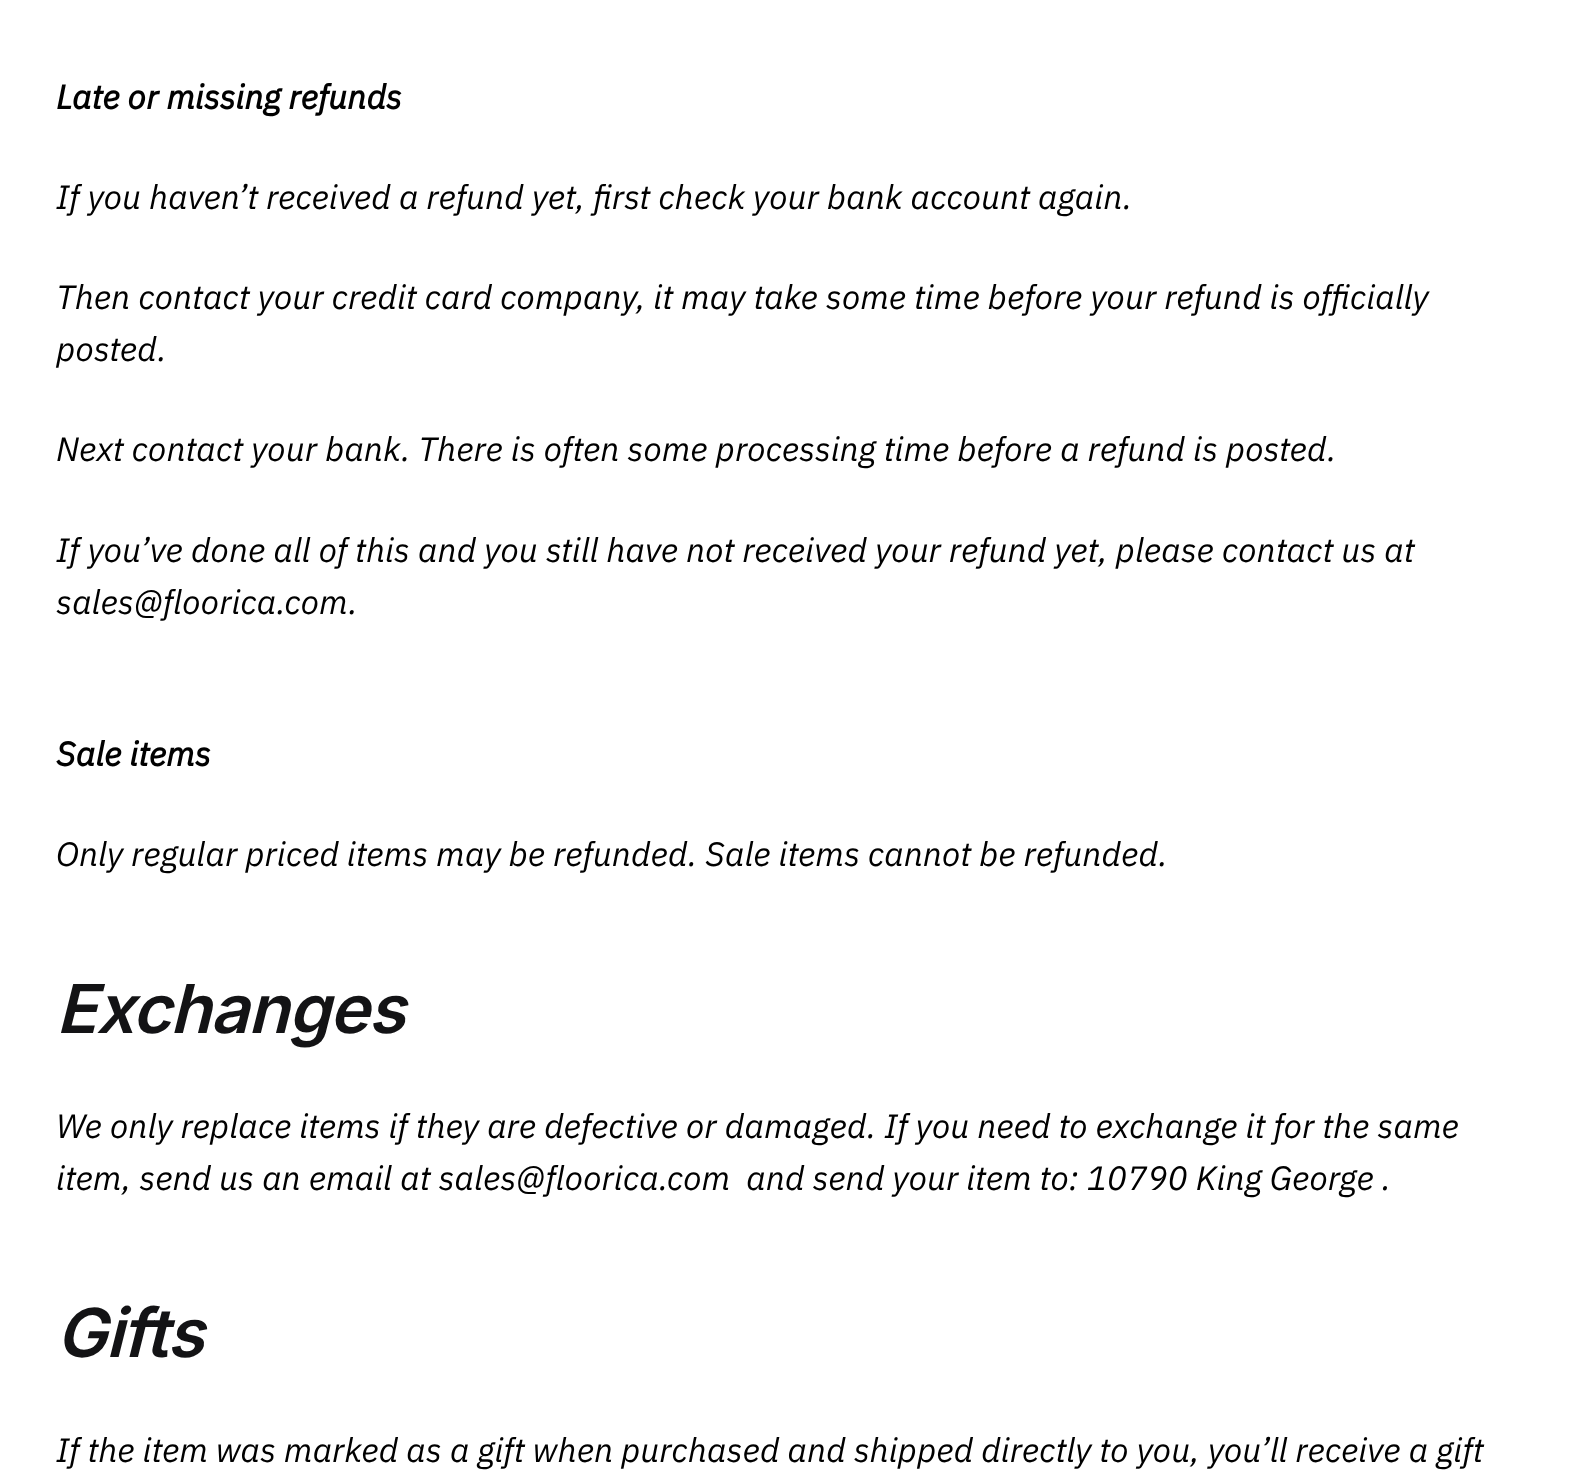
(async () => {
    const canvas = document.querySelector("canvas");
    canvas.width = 1571;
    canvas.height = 1483;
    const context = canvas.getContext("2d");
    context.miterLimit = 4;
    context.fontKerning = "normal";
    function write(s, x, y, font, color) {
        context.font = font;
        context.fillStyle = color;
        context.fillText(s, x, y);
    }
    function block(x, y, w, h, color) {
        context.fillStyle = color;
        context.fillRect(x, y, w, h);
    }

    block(0, 0, 1571, 1483, "rgb(255, 255, 255)");
    write("Late or missing refunds", 56, 109, "italic bold 33.75px IBM Plex Sans", "rgb(0, 0, 0)");
    write("If you haven’t received a refund yet, first check your bank account again.", 56, 209, "italic 33.75px IBM Plex Sans", "rgb(0, 0, 0)");
    write("Then contact your credit card company, it may take some time before your refund is officially", 56, 309, "italic 33.75px IBM Plex Sans", "rgb(0, 0, 0)");
    write("posted.", 56, 361, "italic 33.75px IBM Plex Sans", "rgb(0, 0, 0)");
    write("Next contact your bank. There is often some processing time before a refund is posted.", 56, 461, "italic 33.75px IBM Plex Sans", "rgb(0, 0, 0)");
    write("If you’ve done all of this and you still have not received your refund yet, please contact us at", 56, 562, "italic 33.75px IBM Plex Sans", "rgb(0, 0, 0)");
    write("sales@floorica.com.", 56, 614, "italic 33.75px IBM Plex Sans", "rgb(0, 0, 0)");
    write("Sale items", 56, 766, "italic bold 33.75px IBM Plex Sans", "rgb(0, 0, 0)");
    write("Only regular priced items may be refunded. Sale items cannot be refunded.", 56, 866, "italic 33.75px IBM Plex Sans", "rgb(0, 0, 0)");
    context.letterSpacing = "-1.1px";
    write("Exchanges", 56, 1033, "italic 600 67.5px Inter", "rgb(19, 19, 21)");
    context.letterSpacing = "0px";
    write("We only replace items if they are defective or damaged. If you need to exchange it for the same", 56, 1138, "italic 33.75px IBM Plex Sans", "rgb(0, 0, 0)");
    write("item, send us an email at sales@floorica.com  and send your item to: 10790 King George .", 56, 1190, "italic 33.75px IBM Plex Sans", "rgb(0, 0, 0)");
    context.letterSpacing = "-1.1px";
    write("Gifts", 56, 1357, "italic 600 67.5px Inter", "rgb(19, 19, 21)");
    context.letterSpacing = "0px";
    write("If the item was marked as a gift when purchased and shipped directly to you, you’ll receive a gift", 56, 1462, "italic 33.75px IBM Plex Sans", "rgb(0, 0, 0)");
})();
